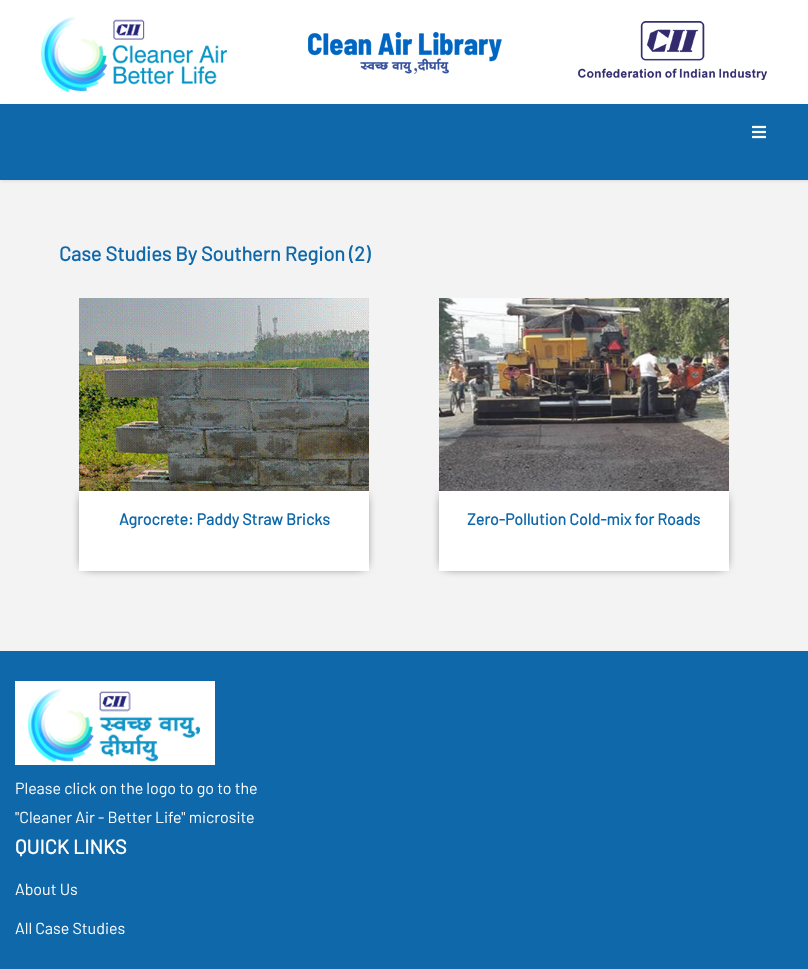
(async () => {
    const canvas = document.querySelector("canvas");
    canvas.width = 808;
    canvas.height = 969;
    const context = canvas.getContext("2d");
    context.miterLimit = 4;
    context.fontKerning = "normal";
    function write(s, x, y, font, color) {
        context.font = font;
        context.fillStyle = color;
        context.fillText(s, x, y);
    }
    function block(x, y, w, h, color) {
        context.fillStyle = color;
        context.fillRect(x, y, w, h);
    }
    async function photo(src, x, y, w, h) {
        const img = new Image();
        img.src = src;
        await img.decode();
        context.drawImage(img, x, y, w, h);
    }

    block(0, 0, 808, 969, "rgb(255, 255, 255)");
    await photo("media/1.png", 41, 17, 186, 75);
    await photo("media/2.png", 308, 32, 194, 42);
    await photo("media/3.png", 578, 21, 189, 59);
    block(0, 180, 808, 471, "rgb(243, 243, 243)");
    context.fillStyle = "rgba(0, 0, 0, 0.1)";
    context.filter = "blur(1.5px)";
    context.beginPath();
    context.rect(1, 105, 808, 76);
    context.fill();
    context.filter = "none";
    block(0, 104, 808, 76, "rgb(15, 104, 170)");
    await photo("media/4.png", 752, 125, 14, 14);
    write("Case Studies By Southern Region (2)", 59, 261, "bold 20px Barlow", "rgb(15, 104, 170)");
    context.fillStyle = "rgb(0, 0, 0)";
    context.filter = "blur(5.5px)";
    context.beginPath();
    context.rect(84, 496, 280, 70);
    context.fill();
    context.filter = "none";
    await photo("media/5.png", 79, 298, 290, 193);
    block(79, 491, 290, 80, "rgb(255, 255, 255)");
    write("Agrocrete: Paddy Straw Bricks", 119, 525, "bold 16px Barlow", "rgb(15, 104, 170)");
    context.fillStyle = "rgb(0, 0, 0)";
    context.filter = "blur(5.5px)";
    context.beginPath();
    context.rect(444, 496, 280, 70);
    context.fill();
    context.filter = "none";
    await photo("media/6.png", 439, 298, 290, 193);
    block(439, 491, 290, 80, "rgb(255, 255, 255)");
    write("Zero-Pollution Cold-mix for Roads", 467, 525, "bold 16px Barlow", "rgb(15, 104, 170)");
    block(0, 651, 808, 318, "rgb(15, 104, 170)");
    block(15, 681, 200, 84, "rgb(255, 255, 255)");
    await photo("media/7.png", 28, 688, 172, 74);
    write("Please click on the logo to go to the", 15, 794, "16px Barlow", "rgb(255, 255, 255)");
    write("\"Cleaner Air - Better Life\" microsite", 15, 823, "16px Barlow", "rgb(255, 255, 255)");
    write("QUICK LINKS", 15, 854, "bold 20px Barlow", "rgb(255, 255, 255)");
    write("About Us", 15, 895, "16px Barlow", "rgb(255, 255, 255)");
    write("All Case Studies", 15, 934, "16px Barlow", "rgb(255, 255, 255)");
})();
